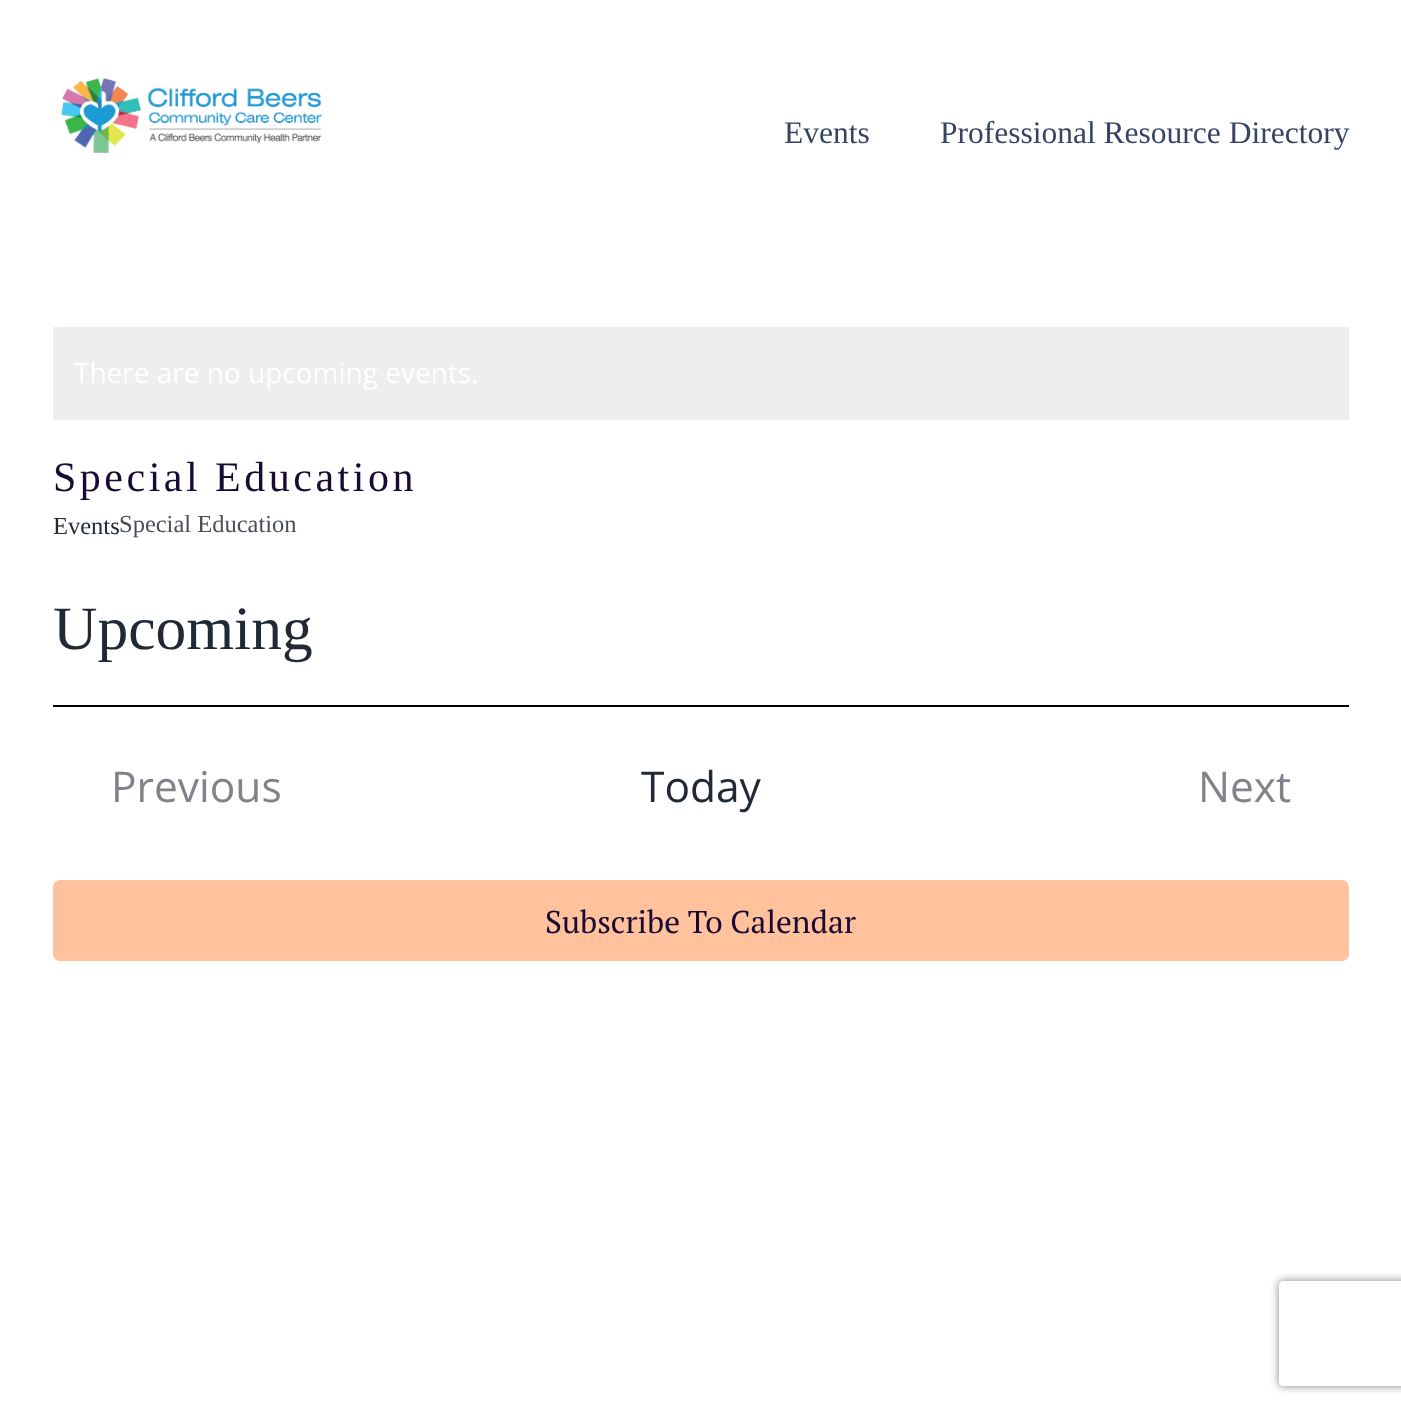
(async () => {
    const canvas = document.querySelector("canvas");
    canvas.width = 1401;
    canvas.height = 1410;
    const context = canvas.getContext("2d");
    context.miterLimit = 4;
    context.fontKerning = "normal";
    function write(s, x, y, font, color) {
        context.font = font;
        context.fillStyle = color;
        context.fillText(s, x, y);
    }
    function block(x, y, w, h, color) {
        context.fillStyle = color;
        context.fillRect(x, y, w, h);
    }
    async function photo(src, x, y, w, h) {
        const img = new Image();
        img.src = src;
        await img.decode();
        context.drawImage(img, x, y, w, h);
    }

    block(0, 0, 1401, 1410, "rgb(255, 255, 255)");
    await photo("media/1.png", 61, 78, 261, 76);
    write("Events", 784, 143, "31.5px Liberation Serif", "rgb(53, 68, 99)");
    write("Professional Resource Directory", 940, 143, "31.5px Liberation Serif", "rgb(53, 68, 99)");
    block(53, 327, 1296, 93, "rgb(239, 237, 237)");
    write("There are no upcoming events.", 74, 383, "28px Open Sans", "rgb(255, 255, 255)");
    context.letterSpacing = "3.5px";
    write("Special Education", 53, 491, "42px Liberation Serif", "rgb(25, 10, 51)");
    context.letterSpacing = "0px";
    write("Events", 53, 534, "24.5px Liberation Serif", "rgb(33, 41, 52)");
    write("Special Education", 119, 532, "24.5px Liberation Serif", "rgb(74, 78, 87)");
    write("Upcoming", 53, 649, "61.5px Liberation Serif", "rgb(33, 41, 52)");
    block(53, 705, 1296, 2, "rgb(0, 0, 0)");
    write("Previous", 111, 802, "42.5px Open Sans", "rgb(128, 131, 137)");
    write("Today", 641, 802, "42.5px Open Sans", "rgb(33, 41, 52)");
    write("Next", 1198, 802, "42.5px Open Sans", "rgb(128, 131, 137)");
    context.fillStyle = "rgb(255, 194, 157)";
    context.beginPath();
    context.roundRect(54, 881, 1294, 79, 6);
    context.fill();
    context.strokeStyle = "rgb(255, 194, 157)";
    context.lineWidth = 2;
    context.stroke();
    write("Subscribe To Calendar", 545, 933, "31.5px PT Serif", "rgb(25, 10, 51)");
    context.save();
    context.beginPath();
    context.moveTo(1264, 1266);
    context.lineTo(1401, 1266);
    context.lineTo(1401, 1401);
    context.lineTo(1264, 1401);
    context.closePath();
    context.moveTo(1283, 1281);
    context.lineTo(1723, 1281);
    context.bezierCurveTo(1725, 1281, 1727, 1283, 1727, 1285);
    context.lineTo(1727, 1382);
    context.bezierCurveTo(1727, 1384, 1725, 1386, 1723, 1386);
    context.lineTo(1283, 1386);
    context.bezierCurveTo(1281, 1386, 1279, 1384, 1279, 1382);
    context.lineTo(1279, 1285);
    context.bezierCurveTo(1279, 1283, 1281, 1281, 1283, 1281);
    context.closePath();
    context.clip("evenodd");
    context.fillStyle = "rgb(128, 128, 128)";
    context.filter = "blur(4.5px)";
    context.beginPath();
    context.roundRect(1279, 1281, 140, 105, 4);
    context.fill();
    context.filter = "none";
    context.restore();
})();
